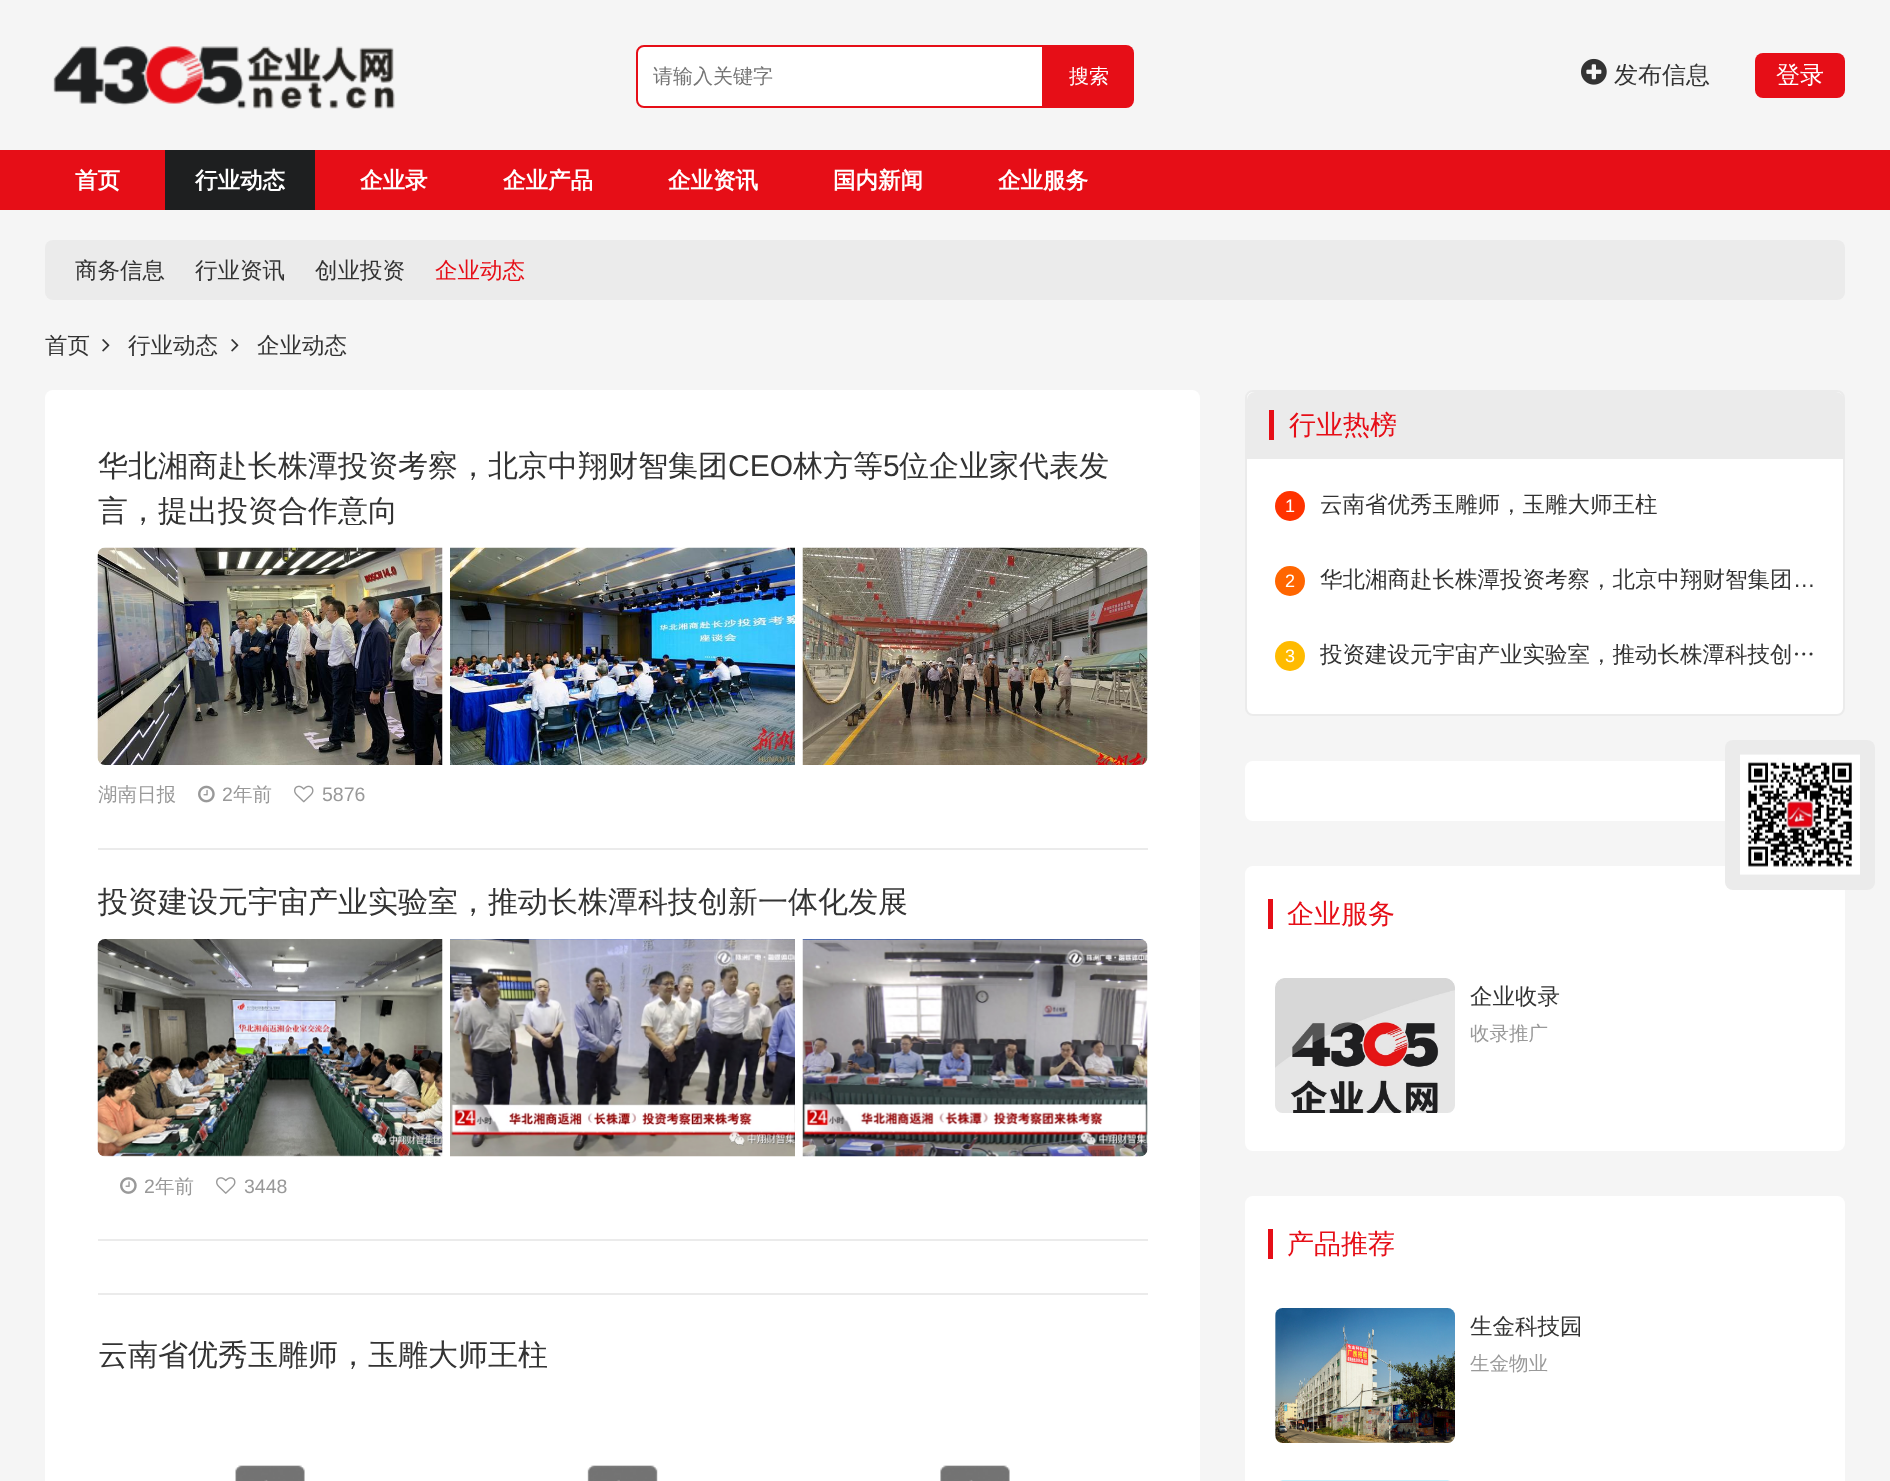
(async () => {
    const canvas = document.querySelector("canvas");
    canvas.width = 1890;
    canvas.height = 1481;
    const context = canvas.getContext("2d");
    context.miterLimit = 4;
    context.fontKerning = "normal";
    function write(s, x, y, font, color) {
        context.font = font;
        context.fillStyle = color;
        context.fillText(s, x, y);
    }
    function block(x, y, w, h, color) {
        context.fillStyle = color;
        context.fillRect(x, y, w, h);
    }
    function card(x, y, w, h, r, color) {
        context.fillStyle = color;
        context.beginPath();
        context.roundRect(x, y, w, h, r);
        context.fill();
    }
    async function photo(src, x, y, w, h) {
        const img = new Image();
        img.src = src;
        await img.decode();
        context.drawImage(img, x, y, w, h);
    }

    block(0, 0, 1890, 1481, "rgb(245, 245, 245)");
    await photo("media/1.png", 53, 45, 342, 64);
    context.fillStyle = "rgb(255, 255, 255)";
    context.beginPath();
    context.roundRect(637, 46, 406, 61, [7, 0, 0, 7]);
    context.fill();
    context.strokeStyle = "rgb(230, 14, 23)";
    context.lineWidth = 2;
    context.stroke();
    write("请输入关键字", 653, 83, "500 20px WenQuanYi Zen Hei", "rgb(117, 117, 117)");
    context.fillStyle = "rgb(230, 14, 23)";
    context.beginPath();
    context.roundRect(1044, 45, 90, 63, [0, 8, 8, 0]);
    context.fill();
    write("搜索", 1069, 83, "500 20px WenQuanYi Zen Hei", "rgb(255, 255, 255)");
    await photo("media/2.png", 1581, 58, 26, 27);
    write("发布信息", 1614, 83, "500 24px WenQuanYi Zen Hei", "rgb(51, 51, 51)");
    card(1755, 53, 90, 45, 8, "rgb(230, 14, 23)");
    write("登录", 1776, 83, "500 24px WenQuanYi Zen Hei", "rgb(255, 255, 255)");
    block(0, 150, 1890, 60, "rgb(230, 14, 23)");
    write("首页", 75, 188, "bold 22.5px WenQuanYi Zen Hei", "rgb(255, 255, 255)");
    block(165, 150, 150, 60, "rgb(30, 31, 32)");
    write("行业动态", 195, 188, "bold 22.5px WenQuanYi Zen Hei", "rgb(255, 255, 255)");
    write("企业录", 360, 188, "bold 22.5px WenQuanYi Zen Hei", "rgb(255, 255, 255)");
    write("企业产品", 503, 188, "bold 22.5px WenQuanYi Zen Hei", "rgb(255, 255, 255)");
    write("企业资讯", 668, 188, "bold 22.5px WenQuanYi Zen Hei", "rgb(255, 255, 255)");
    write("国内新闻", 833, 188, "bold 22.5px WenQuanYi Zen Hei", "rgb(255, 255, 255)");
    write("企业服务", 998, 188, "bold 22.5px WenQuanYi Zen Hei", "rgb(255, 255, 255)");
    card(45, 240, 1800, 60, 8, "rgb(235, 235, 235)");
    write("商务信息", 75, 278, "500 22.5px WenQuanYi Zen Hei", "rgb(51, 51, 51)");
    write("行业资讯", 195, 278, "500 22.5px WenQuanYi Zen Hei", "rgb(51, 51, 51)");
    write("创业投资", 315, 278, "500 22.5px WenQuanYi Zen Hei", "rgb(51, 51, 51)");
    write("企业动态", 435, 278, "500 22.5px WenQuanYi Zen Hei", "rgb(230, 14, 23)");
    write("首页", 45, 353, "500 22.5px WenQuanYi Zen Hei", "rgb(51, 51, 51)");
    await photo("media/3.png", 102, 339, 8, 13);
    write("行业动态", 128, 353, "500 22.5px WenQuanYi Zen Hei", "rgb(51, 51, 51)");
    await photo("media/3.png", 231, 339, 8, 13);
    write("企业动态", 257, 353, "500 22.5px WenQuanYi Zen Hei", "rgb(51, 51, 51)");
    card(45, 390, 1155, 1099, 8, "rgb(255, 255, 255)");
    block(98, 848, 1050, 2, "rgb(235, 235, 235)");
    write("华北湘商赴长株潭投资考察，北京中翔财智集团", 98, 476, "500 30px WenQuanYi Zen Hei", "rgb(51, 51, 51)");
    write("CEO", 728, 476, "30px Liberation Sans", "rgb(51, 51, 51)");
    write("林方等", 793, 476, "500 30px WenQuanYi Zen Hei", "rgb(51, 51, 51)");
    write("5", 883, 476, "30px Liberation Sans", "rgb(51, 51, 51)");
    write("位企业家代表发", 899, 476, "500 30px WenQuanYi Zen Hei", "rgb(51, 51, 51)");
    write("言，提出投资合作意向", 98, 521, "500 30px WenQuanYi Zen Hei", "rgb(51, 51, 51)");
    await photo("media/4.png", 97, 547, 346, 218);
    await photo("media/5.png", 450, 547, 345, 218);
    await photo("media/6.png", 802, 547, 346, 218);
    write("湖南日报", 98, 801, "500 19.5px WenQuanYi Zen Hei", "rgb(153, 153, 153)");
    await photo("media/7.png", 198, 785, 17, 18);
    write("2", 222, 801, "19.5px Liberation Sans", "rgb(153, 153, 153)");
    write("年前", 233, 801, "500 19.5px WenQuanYi Zen Hei", "rgb(153, 153, 153)");
    await photo("media/8.png", 294, 785, 20, 18);
    write("5876", 322, 801, "19.5px Liberation Sans", "rgb(153, 153, 153)");
    block(98, 1239, 1050, 2, "rgb(235, 235, 235)");
    context.save();
    context.beginPath();
    context.rect(98, 864, 1050, 375);
    context.clip();
    write("投资建设元宇宙产业实验室，推动长株潭科技创新一体化发展", 98, 912, "500 30px WenQuanYi Zen Hei", "rgb(51, 51, 51)");
    context.restore();
    await photo("media/9.png", 97, 939, 346, 218);
    await photo("media/10.png", 450, 939, 345, 218);
    await photo("media/11.png", 802, 939, 346, 218);
    await photo("media/12.png", 120, 1177, 17, 17);
    write("2", 144, 1193, "19.5px Liberation Sans", "rgb(153, 153, 153)");
    write("年前", 155, 1193, "500 19.5px WenQuanYi Zen Hei", "rgb(153, 153, 153)");
    await photo("media/13.png", 216, 1177, 20, 17);
    write("3448", 244, 1193, "19.5px Liberation Sans", "rgb(153, 153, 153)");
    block(98, 1293, 1050, 2, "rgb(235, 235, 235)");
    write("云南省优秀玉雕师，玉雕大师王柱", 98, 1365, "500 30px WenQuanYi Zen Hei", "rgb(51, 51, 51)");
    await photo("media/14.png", 235, 1465, 70, 16);
    await photo("media/15.png", 587, 1465, 71, 16);
    await photo("media/16.png", 940, 1465, 70, 16);
    context.fillStyle = "rgb(255, 255, 255)";
    context.beginPath();
    context.roundRect(1246, 391, 598, 324, 7);
    context.fill();
    context.strokeStyle = "rgb(235, 235, 235)";
    context.stroke();
    context.fillStyle = "rgb(235, 235, 235)";
    context.beginPath();
    context.roundRect(1247, 392, 597, 67, [8, 8, 0, 0]);
    context.fill();
    write("行业热榜", 1289, 434, "500 27px WenQuanYi Zen Hei", "rgb(230, 14, 23)");
    block(1269, 410, 5, 30, "rgb(230, 14, 23)");
    context.fillStyle = "rgb(255, 51, 0)";
    context.beginPath();
    context.arc(1290, 506, 15, 0, Math.PI * 2);
    context.fill();
    write("1", 1285, 512, "18px Liberation Sans", "rgb(255, 255, 255)");
    write("云南省优秀玉雕师，玉雕大师王柱", 1320, 512, "500 22.5px WenQuanYi Zen Hei", "rgb(51, 51, 51)");
    context.fillStyle = "rgb(255, 102, 0)";
    context.beginPath();
    context.arc(1290, 581, 15, 0, Math.PI * 2);
    context.fill();
    write("2", 1285, 587, "18px Liberation Sans", "rgb(255, 255, 255)");
    write("华北湘商赴长株潭投资考察，北京中翔财智集团", 1320, 587, "500 22.5px WenQuanYi Zen Hei", "rgb(51, 51, 51)");
    write("…", 1793, 587, "22.5px Liberation Sans", "rgb(51, 51, 51)");
    context.fillStyle = "rgb(255, 187, 0)";
    context.beginPath();
    context.arc(1290, 656, 15, 0, Math.PI * 2);
    context.fill();
    write("3", 1285, 662, "18px Liberation Sans", "rgb(255, 255, 255)");
    write("投资建设元宇宙产业实验室，推动长株潭科技创…", 1320, 662, "500 22.5px WenQuanYi Zen Hei", "rgb(51, 51, 51)");
    card(1245, 761, 600, 60, 8, "rgb(255, 255, 255)");
    card(1245, 866, 600, 285, 8, "rgb(255, 255, 255)");
    write("企业服务", 1287, 923, "500 27px WenQuanYi Zen Hei", "rgb(230, 14, 23)");
    block(1268, 899, 5, 30, "rgb(230, 14, 23)");
    await photo("media/17.png", 1275, 978, 180, 135);
    write("企业收录", 1470, 1004, "500 22.5px WenQuanYi Zen Hei", "rgb(51, 51, 51)");
    write("收录推广", 1470, 1040, "500 19.5px WenQuanYi Zen Hei", "rgb(153, 153, 153)");
    card(1245, 1196, 600, 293, 8, "rgb(255, 255, 255)");
    write("产品推荐", 1287, 1253, "500 27px WenQuanYi Zen Hei", "rgb(230, 14, 23)");
    block(1268, 1229, 5, 30, "rgb(230, 14, 23)");
    await photo("media/18.png", 1275, 1308, 180, 135);
    write("生金科技园", 1470, 1334, "500 22.5px WenQuanYi Zen Hei", "rgb(51, 51, 51)");
    write("生金物业", 1470, 1370, "500 19.5px WenQuanYi Zen Hei", "rgb(153, 153, 153)");
    await photo("media/19.png", 1280, 1480, 170, 1);
    card(1725, 740, 150, 150, 8, "rgb(235, 235, 235)");
    await photo("media/20.png", 1740, 754, 120, 121);
})();
